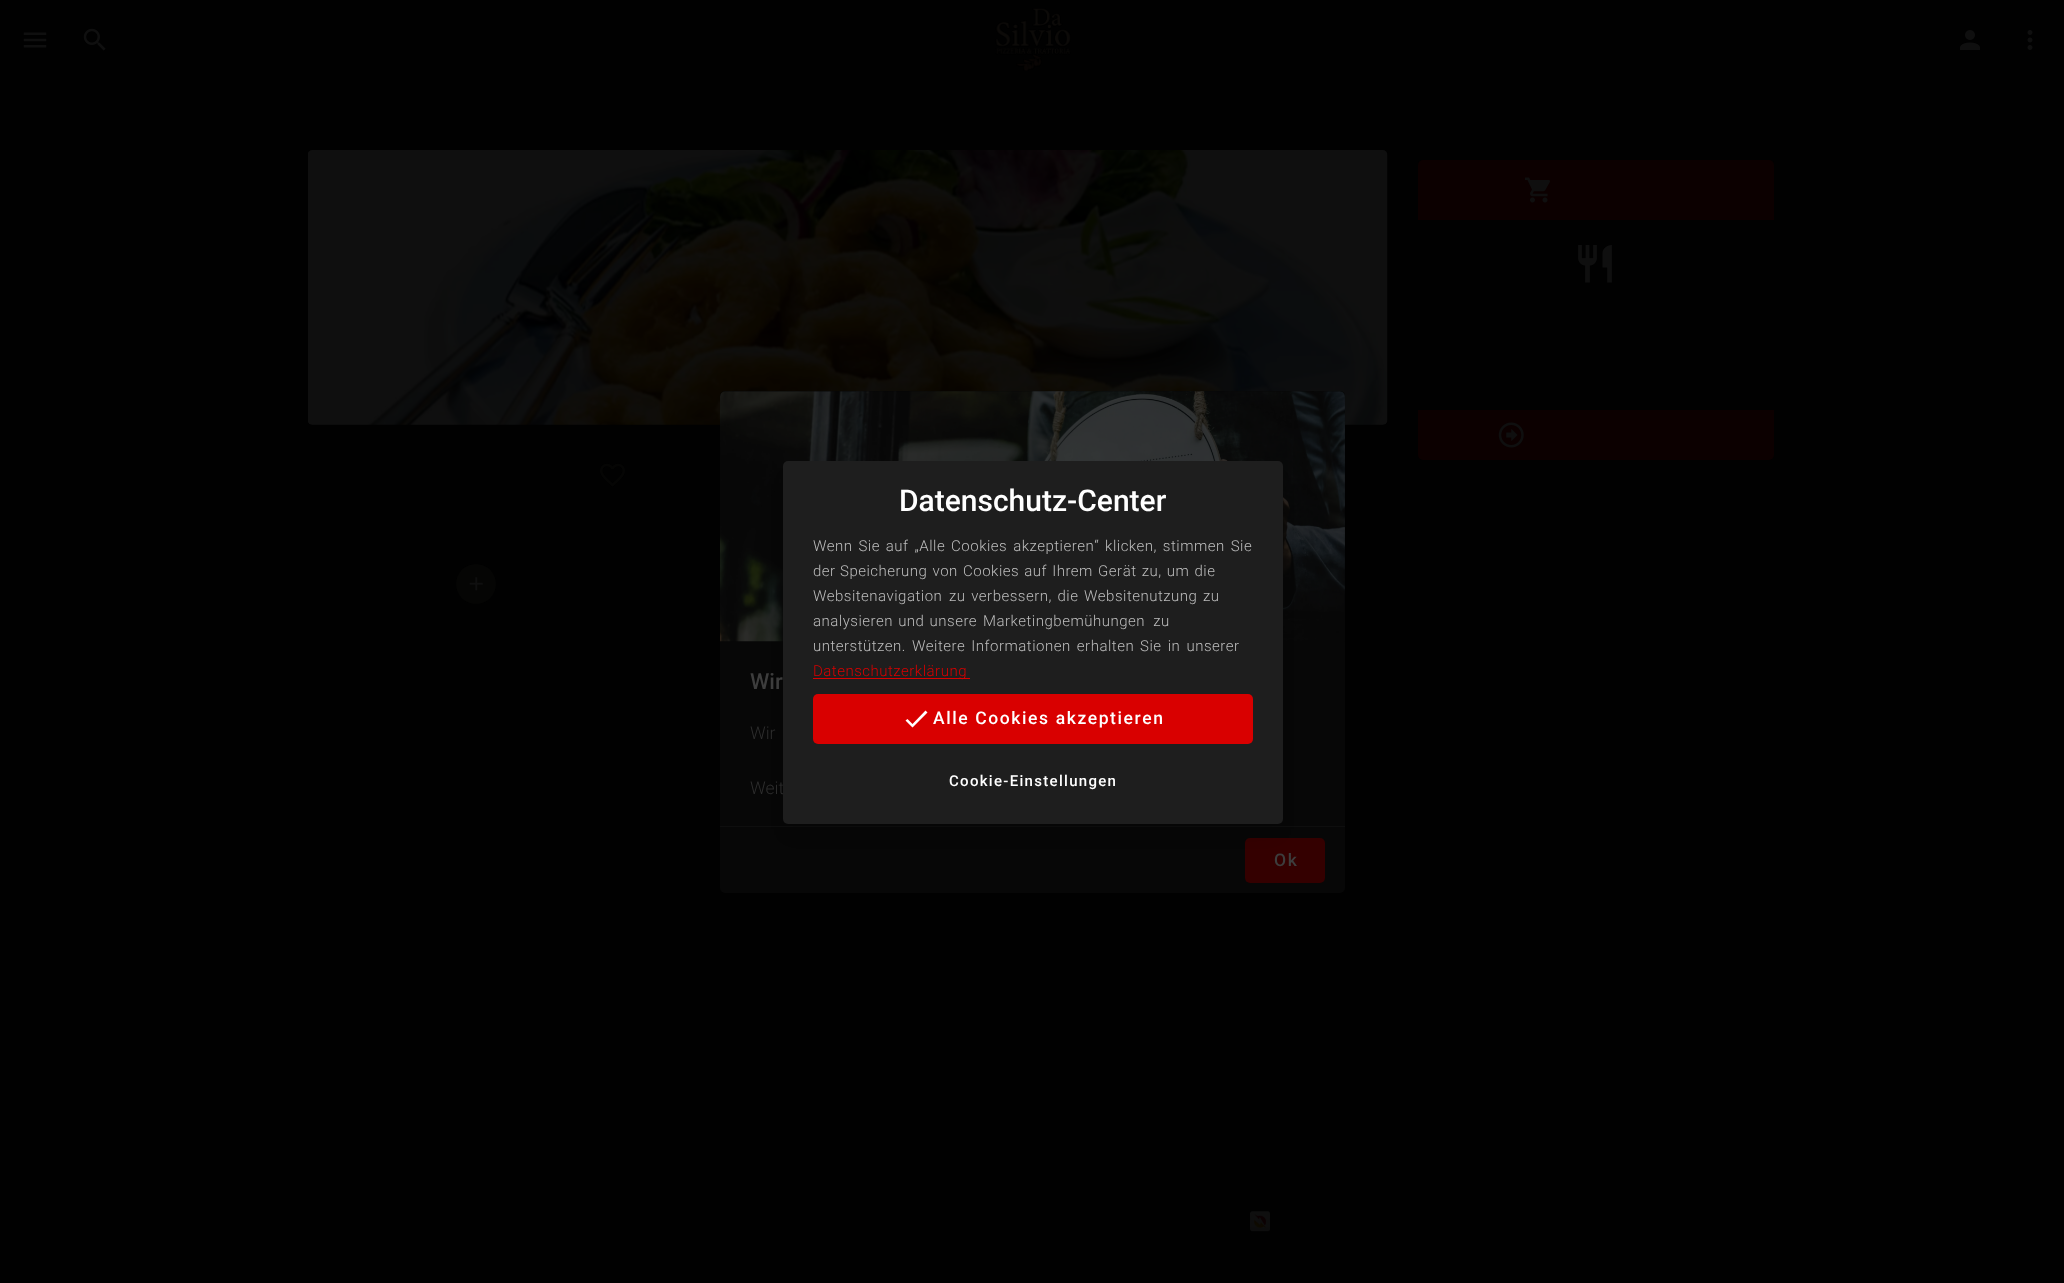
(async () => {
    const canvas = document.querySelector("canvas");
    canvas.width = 2064;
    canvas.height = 1283;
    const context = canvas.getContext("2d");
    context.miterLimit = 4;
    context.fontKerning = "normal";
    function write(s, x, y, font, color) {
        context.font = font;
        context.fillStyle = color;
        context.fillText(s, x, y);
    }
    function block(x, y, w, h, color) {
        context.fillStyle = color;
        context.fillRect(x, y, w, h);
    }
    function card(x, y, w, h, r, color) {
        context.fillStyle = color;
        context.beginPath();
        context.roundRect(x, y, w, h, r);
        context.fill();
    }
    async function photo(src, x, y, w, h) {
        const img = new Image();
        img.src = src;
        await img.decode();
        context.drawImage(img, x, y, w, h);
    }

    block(0, 0, 2064, 1283, "rgb(1, 1, 1)");
    await photo("media/1.png", 23, 32, 24, 16);
    await photo("media/2.png", 83, 28, 23, 23);
    await photo("media/3.png", 995, 8, 76, 63);
    await photo("media/4.png", 1960, 30, 20, 20);
    await photo("media/5.png", 2027, 30, 6, 20);
    await photo("media/6.png", 308, 150, 1080, 275);
    await photo("media/7.png", 600, 463, 25, 24);
    context.fillStyle = "rgb(5, 5, 4)";
    context.beginPath();
    context.arc(476, 584, 20, 0, Math.PI * 2);
    context.fill();
    await photo("media/8.png", 469, 577, 14, 14);
    context.fillStyle = "rgb(12, 0, 0)";
    context.beginPath();
    context.roundRect(1418, 160, 356, 60, [5, 5, 0, 0]);
    context.fill();
    await photo("media/9.png", 1525, 177, 25, 26);
    await photo("media/10.png", 1578, 245, 34, 38);
    context.beginPath();
    context.roundRect(1418, 410, 356, 50, [0, 0, 5, 5]);
    context.fill();
    await photo("media/11.png", 1498, 422, 26, 26);
    await photo("media/12.png", 1250, 1211, 20, 21);
    card(720, 391, 625, 502, 5, "rgb(7, 7, 7)");
    await photo("media/13.png", 720, 391, 625, 251);
    block(720, 826, 625, 1, "rgb(14, 14, 14)");
    card(1245, 838, 80, 45, 5, "rgb(52, 0, 0)");
    context.fillStyle = "rgba(0, 0, 0, 0.2)";
    context.filter = "blur(9.5px)";
    context.beginPath();
    context.rect(791, 484, 483, 345);
    context.fill();
    context.filter = "none";
    write("Wir", 750, 689, "500 22px Roboto", "rgb(61, 61, 61)");
    context.wordSpacing = "1px";
    write("Weit", 750, 794, "300 17.5px Roboto", "rgb(45, 45, 45)");
    card(783, 461, 500, 363, 5, "rgb(30, 30, 30)");
    context.wordSpacing = "0px";
    write("Datenschutz-Center", 899, 511, "500 30px Roboto", "rgb(255, 255, 255)");
    context.letterSpacing = "0.5px";
    context.wordSpacing = "1.75px";
    write("Wenn Sie auf „Alle Cookies akzeptieren“ klicken, stimmen Sie", 813, 551, "300 15px Roboto", "rgb(188, 188, 188)");
    context.wordSpacing = "0px";
    write("der", 813, 576, "300 15px Roboto", "rgb(188, 188, 188)");
    context.wordSpacing = "1px";
    write("Speicherung von Cookies auf Ihrem Gerät zu, um die", 840, 576, "300 15px Roboto", "rgb(188, 188, 188)");
    context.wordSpacing = "0px";
    write("Websitenavigation", 813, 601, "300 15px Roboto", "rgb(188, 188, 188)");
    context.wordSpacing = "1.5px";
    write("zu verbessern, die Websitenutzung zu", 949, 601, "300 15px Roboto", "rgb(188, 188, 188)");
    context.wordSpacing = "1px";
    write("analysieren und unsere", 813, 626, "300 15px Roboto", "rgb(188, 188, 188)");
    context.wordSpacing = "4px";
    write("Marketingbemühungen zu", 983, 626, "300 15px Roboto", "rgb(188, 188, 188)");
    context.wordSpacing = "2px";
    write("unterstützen. Weitere Informationen erhalten", 813, 651, "300 15px Roboto", "rgb(188, 188, 188)");
    write("Sie in unserer", 1140, 651, "300 15px Roboto", "rgb(188, 188, 188)");
    block(813, 678, 157, 1, "rgb(217, 0, 0)");
    context.wordSpacing = "0px";
    write("Datenschutzerklärung", 813, 676, "300 15px Roboto", "rgb(217, 0, 0)");
    card(813, 694, 440, 50, 5, "rgb(217, 0, 0)");
    context.fillStyle = "rgb(255, 255, 255)";
    context.beginPath();
    context.moveTo(927.5, 712.5);
    context.lineTo(912.5, 727.5);
    context.lineTo(905.5, 720.5);
    context.lineTo(907.5, 719);
    context.lineTo(912.5, 724);
    context.lineTo(925.5, 710.5);
    context.closePath();
    context.fill();
    context.letterSpacing = "1.6px";
    write("Alle Cookies akzeptieren", 933, 724, "500 17.5px Roboto", "rgb(255, 255, 255)");
    context.letterSpacing = "1.3px";
    write("Cookie-Einstellungen", 949, 786, "500 15px Roboto", "rgb(255, 255, 255)");
    context.letterSpacing = "0px";
    context.wordSpacing = "1px";
    write("Wir", 750, 739, "300 17.5px Roboto", "rgb(45, 45, 45)");
    context.letterSpacing = "1.6px";
    context.wordSpacing = "0px";
    write("Ok", 1274, 866, "500 17.5px Roboto", "rgb(61, 61, 61)");
})();
